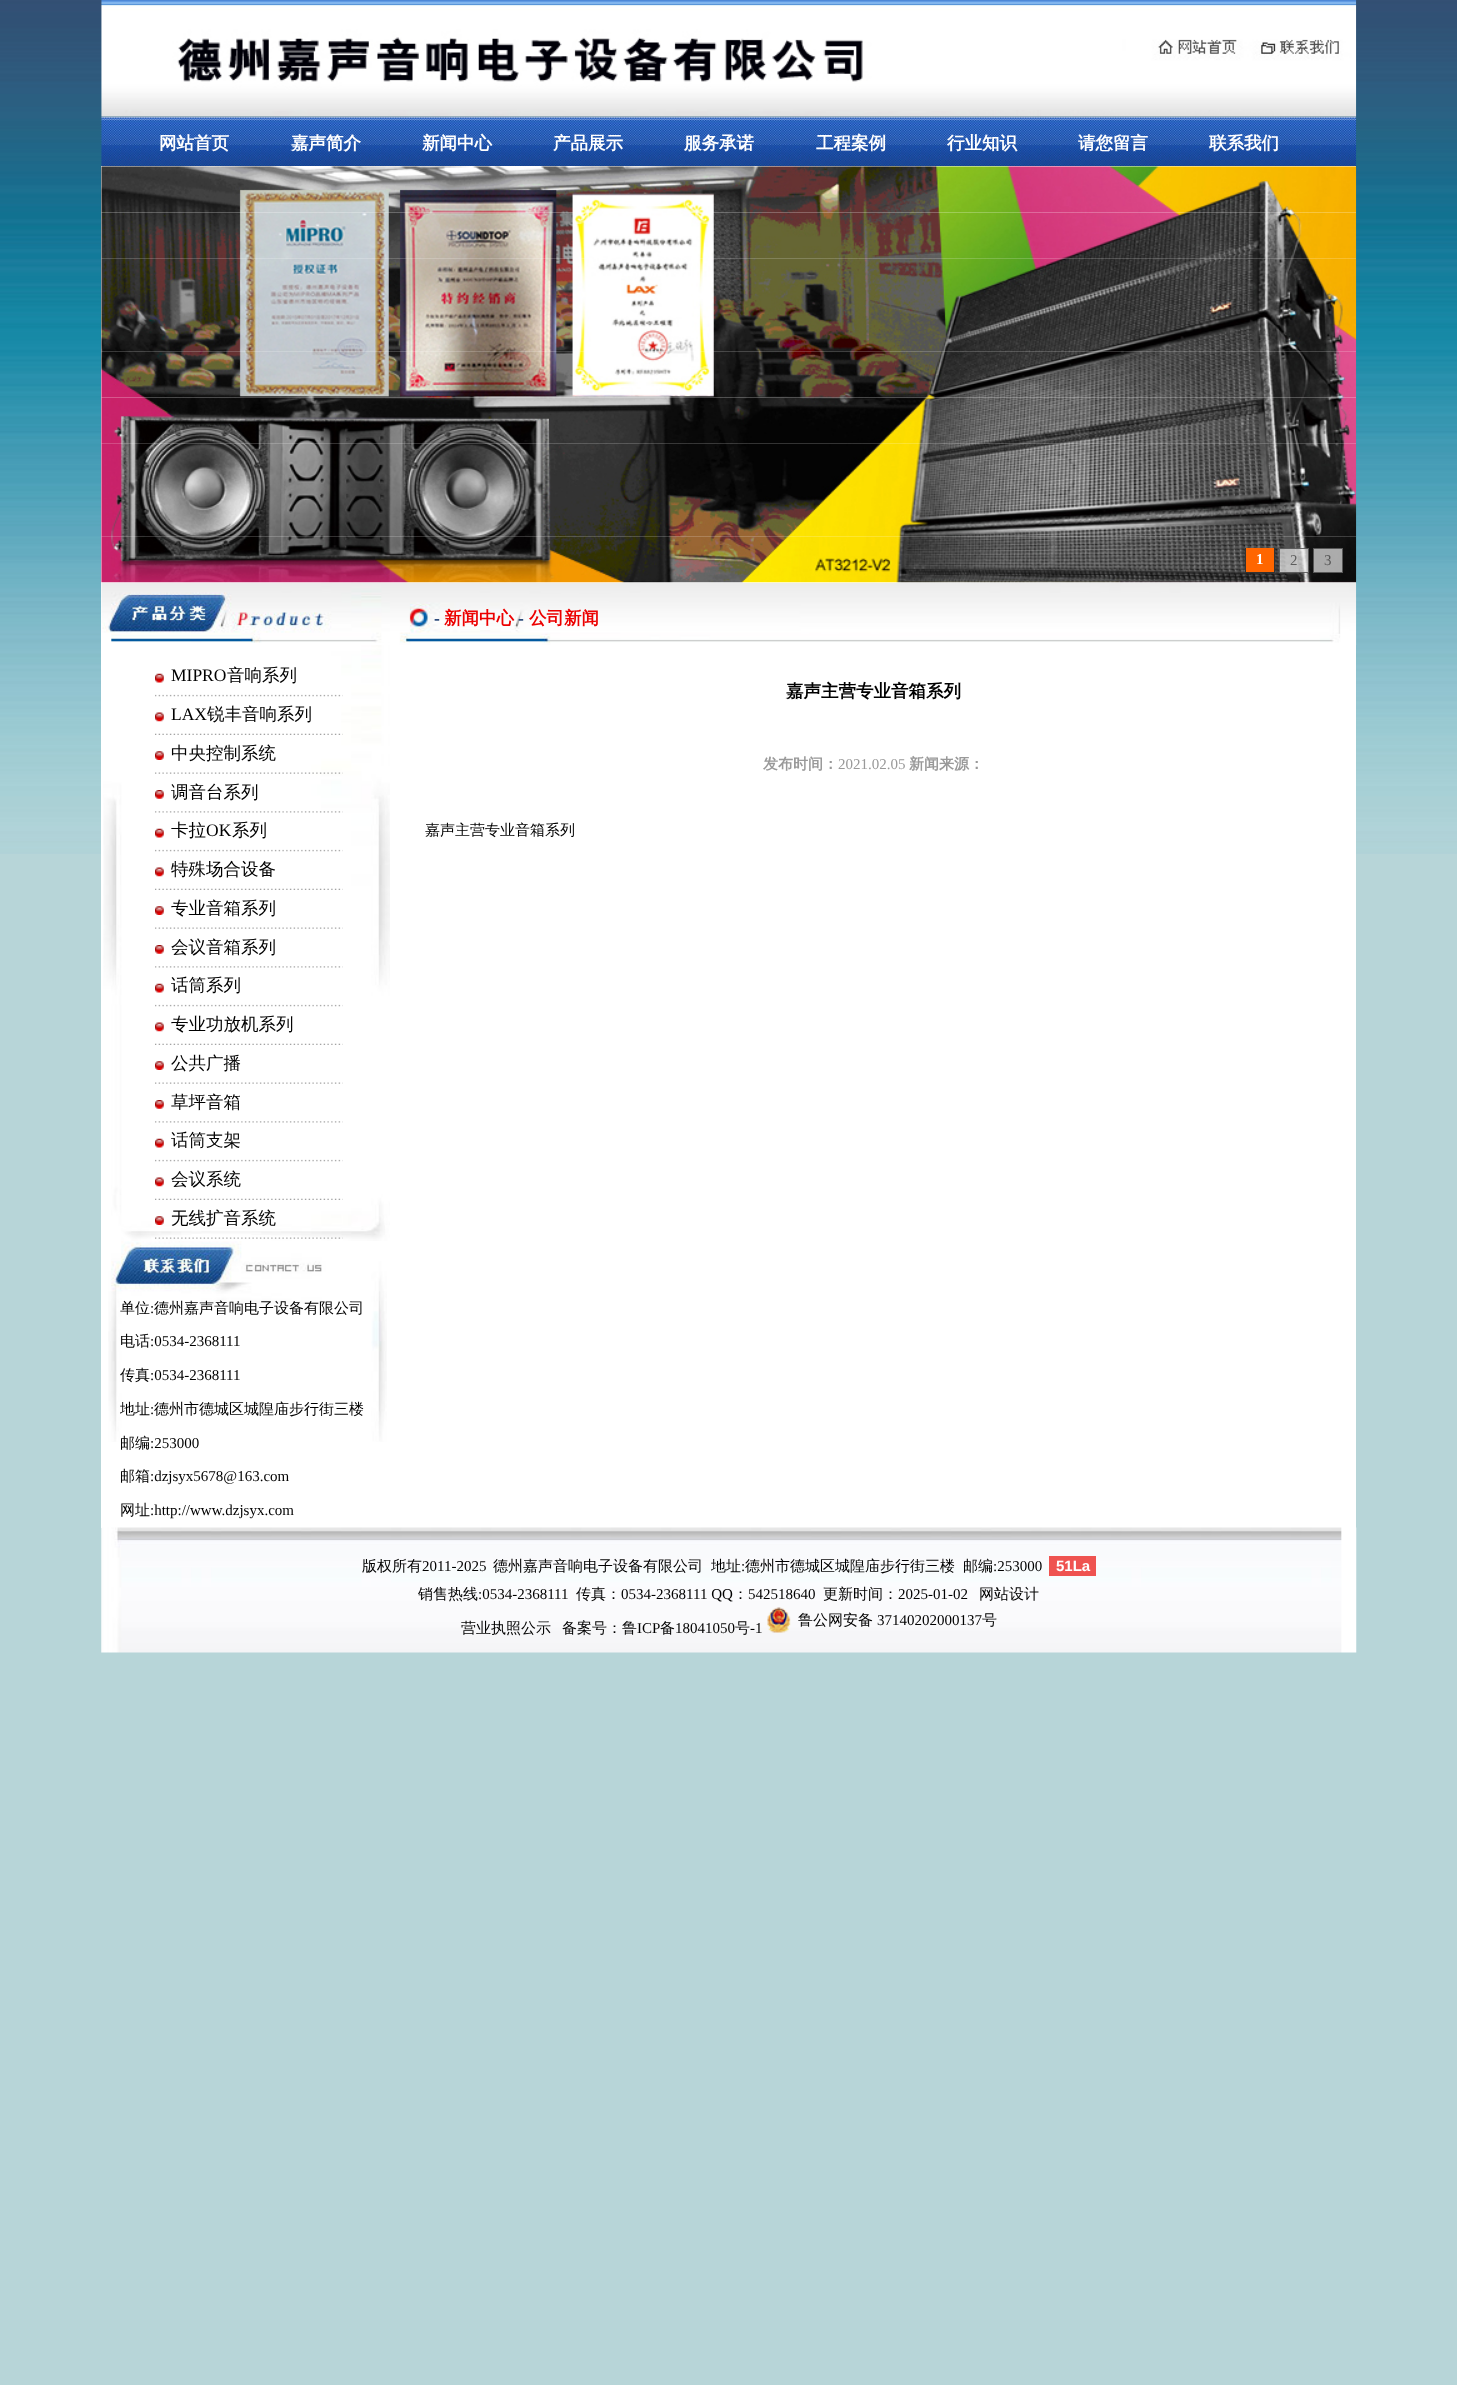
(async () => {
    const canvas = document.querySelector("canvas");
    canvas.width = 1457;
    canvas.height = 2385;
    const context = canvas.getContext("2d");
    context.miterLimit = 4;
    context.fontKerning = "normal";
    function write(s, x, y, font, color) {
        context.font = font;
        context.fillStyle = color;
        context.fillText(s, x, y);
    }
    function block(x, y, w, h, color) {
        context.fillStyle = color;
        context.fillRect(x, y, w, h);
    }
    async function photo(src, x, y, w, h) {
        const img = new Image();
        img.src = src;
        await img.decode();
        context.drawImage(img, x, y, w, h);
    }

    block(0, 0, 1457, 2385, "rgb(183, 213, 216)");
    await photo("media/1.png", 0, 0, 1457, 854);
    await photo("media/2.png", 101, 0, 1256, 117);
    await photo("media/3.png", 101, 116, 1256, 50);
    write("网站首页", 159, 149, "bold 17.5px WenQuanYi Zen Hei", "rgb(255, 255, 255)");
    write("嘉声简介", 291, 149, "bold 17.5px WenQuanYi Zen Hei", "rgb(255, 255, 255)");
    write("新闻中心", 422, 149, "bold 17.5px WenQuanYi Zen Hei", "rgb(255, 255, 255)");
    write("产品展示", 553, 149, "bold 17.5px WenQuanYi Zen Hei", "rgb(255, 255, 255)");
    write("服务承诺", 684, 149, "bold 17.5px WenQuanYi Zen Hei", "rgb(255, 255, 255)");
    write("工程案例", 816, 149, "bold 17.5px WenQuanYi Zen Hei", "rgb(255, 255, 255)");
    write("行业知识", 947, 149, "bold 17.5px WenQuanYi Zen Hei", "rgb(255, 255, 255)");
    write("请您留言", 1078, 149, "bold 17.5px WenQuanYi Zen Hei", "rgb(255, 255, 255)");
    write("联系我们", 1209, 149, "bold 17.5px WenQuanYi Zen Hei", "rgb(255, 255, 255)");
    block(101, 166, 1255, 1362, "rgb(255, 255, 255)");
    await photo("media/4.png", 101, 166, 1256, 47);
    await photo("media/5.png", 101, 212, 1256, 47);
    await photo("media/6.png", 101, 258, 1256, 47);
    await photo("media/7.png", 101, 305, 1256, 47);
    await photo("media/8.png", 101, 351, 1256, 47);
    await photo("media/9.png", 101, 397, 1256, 47);
    await photo("media/10.png", 101, 443, 1256, 47);
    await photo("media/11.png", 101, 490, 1256, 47);
    await photo("media/12.png", 101, 536, 1256, 47);
    block(1246, 548, 28, 24, "rgb(255, 102, 0)");
    context.save();
    context.beginPath();
    context.rect(1245, 548, 101, 27);
    context.clip();
    context.strokeStyle = "rgb(51, 51, 51)";
    context.strokeRect(1245.5, 545.5, 29, 27);
    context.restore();
    write("1", 1256, 564, "bold 15px Liberation Serif", "rgb(255, 255, 255)");
    block(1279, 548, 30, 25, "rgba(238, 238, 238, 0.7)");
    context.strokeStyle = "rgba(51, 51, 51, 0.7)";
    context.strokeRect(1279.5, 548.5, 29, 24);
    write("2", 1290, 565, "15px Liberation Serif", "rgb(93, 93, 93)");
    block(1313, 548, 30, 25, "rgba(238, 238, 238, 0.7)");
    context.strokeRect(1313.5, 548.5, 29, 24);
    write("3", 1324, 565, "15px Liberation Serif", "rgb(87, 87, 87)");
    await photo("media/13.png", 101, 583, 289, 60);
    await photo("media/14.png", 103, 645, 287, 596);
    await photo("media/15.png", 155, 694, 188, 3);
    await photo("media/16.png", 155, 673, 9, 10);
    write("MIPRO", 171, 681, "17.5px Liberation Serif", "rgb(0, 0, 0)");
    write("音响系列", 227, 681, "500 17.5px WenQuanYi Zen Hei", "rgb(0, 0, 0)");
    await photo("media/17.png", 155, 733, 188, 2);
    await photo("media/18.png", 155, 712, 9, 10);
    write("LAX", 171, 720, "17.5px Liberation Serif", "rgb(0, 0, 0)");
    write("锐丰音响系列", 207, 720, "500 17.5px WenQuanYi Zen Hei", "rgb(0, 0, 0)");
    await photo("media/19.png", 155, 772, 188, 2);
    await photo("media/20.png", 155, 751, 9, 9);
    write("中央控制系统", 171, 759, "500 17.5px WenQuanYi Zen Hei", "rgb(0, 0, 0)");
    await photo("media/21.png", 155, 811, 188, 2);
    await photo("media/22.png", 155, 790, 9, 9);
    write("调音台系列", 171, 798, "500 17.5px WenQuanYi Zen Hei", "rgb(0, 0, 0)");
    await photo("media/15.png", 155, 849, 188, 3);
    await photo("media/16.png", 155, 828, 9, 10);
    write("卡拉", 171, 836, "500 17.5px WenQuanYi Zen Hei", "rgb(0, 0, 0)");
    write("OK", 206, 836, "17.5px Liberation Serif", "rgb(0, 0, 0)");
    write("系列", 232, 836, "500 17.5px WenQuanYi Zen Hei", "rgb(0, 0, 0)");
    await photo("media/23.png", 155, 888, 188, 2);
    await photo("media/18.png", 155, 867, 9, 10);
    write("特殊场合设备", 171, 875, "500 17.5px WenQuanYi Zen Hei", "rgb(0, 0, 0)");
    await photo("media/24.png", 155, 927, 188, 2);
    await photo("media/20.png", 155, 906, 9, 9);
    write("专业音箱系列", 171, 914, "500 17.5px WenQuanYi Zen Hei", "rgb(0, 0, 0)");
    await photo("media/25.png", 155, 966, 188, 2);
    await photo("media/22.png", 155, 945, 9, 9);
    write("会议音箱系列", 171, 953, "500 17.5px WenQuanYi Zen Hei", "rgb(0, 0, 0)");
    await photo("media/15.png", 155, 1004, 188, 3);
    await photo("media/16.png", 155, 983, 9, 10);
    write("话筒系列", 171, 991, "500 17.5px WenQuanYi Zen Hei", "rgb(0, 0, 0)");
    await photo("media/23.png", 155, 1043, 188, 2);
    await photo("media/26.png", 155, 1022, 9, 10);
    write("专业功放机系列", 171, 1030, "500 17.5px WenQuanYi Zen Hei", "rgb(0, 0, 0)");
    await photo("media/24.png", 155, 1082, 188, 2);
    await photo("media/20.png", 155, 1061, 9, 9);
    write("公共广播", 171, 1069, "500 17.5px WenQuanYi Zen Hei", "rgb(0, 0, 0)");
    await photo("media/25.png", 155, 1121, 188, 2);
    await photo("media/22.png", 155, 1100, 9, 9);
    write("草坪音箱", 171, 1108, "500 17.5px WenQuanYi Zen Hei", "rgb(0, 0, 0)");
    await photo("media/15.png", 155, 1159, 188, 3);
    await photo("media/16.png", 155, 1138, 9, 10);
    write("话筒支架", 171, 1146, "500 17.5px WenQuanYi Zen Hei", "rgb(0, 0, 0)");
    await photo("media/23.png", 155, 1198, 188, 2);
    await photo("media/18.png", 155, 1177, 9, 10);
    write("会议系统", 171, 1185, "500 17.5px WenQuanYi Zen Hei", "rgb(0, 0, 0)");
    await photo("media/27.png", 155, 1237, 188, 2);
    await photo("media/28.png", 155, 1216, 9, 9);
    write("无线扩音系统", 171, 1224, "500 17.5px WenQuanYi Zen Hei", "rgb(0, 0, 0)");
    await photo("media/29.png", 108, 1241, 279, 201);
    write("单位", 120, 1313, "500 15px WenQuanYi Zen Hei", "rgb(0, 0, 0)");
    write(":", 150, 1313, "15px Liberation Serif", "rgb(0, 0, 0)");
    write("德州嘉声音响电子设备有限公司", 154, 1313, "500 15px WenQuanYi Zen Hei", "rgb(0, 0, 0)");
    write("电话", 120, 1346, "500 15px WenQuanYi Zen Hei", "rgb(0, 0, 0)");
    write(":0534-2368111", 150, 1346, "15px Liberation Serif", "rgb(0, 0, 0)");
    write("传真", 120, 1380, "500 15px WenQuanYi Zen Hei", "rgb(0, 0, 0)");
    write(":0534-2368111", 150, 1380, "15px Liberation Serif", "rgb(0, 0, 0)");
    write("地址", 120, 1414, "500 15px WenQuanYi Zen Hei", "rgb(0, 0, 0)");
    write(":", 150, 1414, "15px Liberation Serif", "rgb(0, 0, 0)");
    write("德州市德城区城隍庙步行街三楼", 154, 1414, "500 15px WenQuanYi Zen Hei", "rgb(0, 0, 0)");
    write("邮编", 120, 1448, "500 15px WenQuanYi Zen Hei", "rgb(0, 0, 0)");
    write(":253000", 150, 1448, "15px Liberation Serif", "rgb(0, 0, 0)");
    write("邮箱", 120, 1481, "500 15px WenQuanYi Zen Hei", "rgb(0, 0, 0)");
    write(":dzjsyx5678@163.com", 150, 1481, "15px Liberation Serif", "rgb(0, 0, 0)");
    write("网址", 120, 1515, "500 15px WenQuanYi Zen Hei", "rgb(0, 0, 0)");
    write(":http://www.dzjsyx.com", 150, 1515, "15px Liberation Serif", "rgb(0, 0, 0)");
    await photo("media/30.png", 390, 583, 967, 62);
    write("-", 434, 624, "bold 17.5px Liberation Serif", "rgb(15, 50, 106)");
    write("新闻中心", 444, 624, "bold 17.5px WenQuanYi Zen Hei", "rgb(236, 0, 0)");
    write("-", 518, 624, "bold 17.5px Liberation Serif", "rgb(15, 50, 106)");
    write("公司新闻", 529, 624, "bold 17.5px WenQuanYi Zen Hei", "rgb(236, 0, 0)");
    write("嘉声主营专业音箱系列", 786, 697, "bold 17.5px WenQuanYi Zen Hei", "rgb(0, 0, 0)");
    write("发布时间：", 763, 769, "bold 15px WenQuanYi Zen Hei", "rgb(153, 153, 153)");
    write("2021.02.05", 838, 769, "15px Liberation Serif", "rgb(153, 153, 153)");
    write("新闻来源：", 909, 769, "bold 15px WenQuanYi Zen Hei", "rgb(153, 153, 153)");
    write("嘉声主营专业音箱系列", 425, 835, "500 15px WenQuanYi Zen Hei", "rgb(0, 0, 0)");
    await photo("media/31.png", 101, 1527, 1256, 126);
    write("版权所有", 362, 1571, "500 15px WenQuanYi Zen Hei", "rgb(0, 0, 0)");
    write("2011-2025", 422, 1571, "15px Liberation Serif", "rgb(0, 0, 0)");
    write("德州嘉声音响电子设备有限公司", 493, 1571, "500 15px WenQuanYi Zen Hei", "rgb(0, 0, 0)");
    write("地址", 711, 1571, "500 15px WenQuanYi Zen Hei", "rgb(0, 0, 0)");
    write(":", 741, 1571, "15px Liberation Serif", "rgb(0, 0, 0)");
    write("德州市德城区城隍庙步行街三楼", 745, 1571, "500 15px WenQuanYi Zen Hei", "rgb(0, 0, 0)");
    write("邮编", 963, 1571, "500 15px WenQuanYi Zen Hei", "rgb(0, 0, 0)");
    write(":253000", 993, 1571, "15px Liberation Serif", "rgb(0, 0, 0)");
    block(1049, 1556, 47, 20, "rgb(239, 83, 80)");
    write("51La", 1056, 1571, "bold 15px Liberation Sans", "rgb(255, 255, 255)");
    write("销售热线", 418, 1599, "500 15px WenQuanYi Zen Hei", "rgb(0, 0, 0)");
    write(":0534-2368111", 478, 1599, "15px Liberation Serif", "rgb(0, 0, 0)");
    write("传真：", 576, 1599, "500 15px WenQuanYi Zen Hei", "rgb(0, 0, 0)");
    write("0534-2368111 QQ", 621, 1599, "15px Liberation Serif", "rgb(0, 0, 0)");
    write("：", 733, 1599, "500 15px WenQuanYi Zen Hei", "rgb(0, 0, 0)");
    write("542518640", 748, 1599, "15px Liberation Serif", "rgb(0, 0, 0)");
    write("更新时间：", 823, 1599, "500 15px WenQuanYi Zen Hei", "rgb(0, 0, 0)");
    write("2025-01-02", 898, 1599, "15px Liberation Serif", "rgb(0, 0, 0)");
    write("网站设计", 979, 1599, "500 15px WenQuanYi Zen Hei", "rgb(0, 0, 0)");
    write("营业执照公示", 461, 1633, "500 15px WenQuanYi Zen Hei", "rgb(0, 0, 0)");
    write("备案号：鲁", 562, 1633, "500 15px WenQuanYi Zen Hei", "rgb(0, 0, 0)");
    write("ICP", 637, 1633, "15px Liberation Serif", "rgb(0, 0, 0)");
    write("备", 660, 1633, "500 15px WenQuanYi Zen Hei", "rgb(0, 0, 0)");
    write("18041050", 675, 1633, "15px Liberation Serif", "rgb(0, 0, 0)");
    write("号", 735, 1633, "500 15px WenQuanYi Zen Hei", "rgb(0, 0, 0)");
    write("-1", 750, 1633, "15px Liberation Serif", "rgb(0, 0, 0)");
    await photo("media/32.png", 767, 1607, 24, 26);
    write("鲁公网安备", 798, 1625, "500 15px WenQuanYi Zen Hei", "rgb(0, 0, 0)");
    write("37140202000137", 877, 1625, "15px Liberation Serif", "rgb(0, 0, 0)");
    write("号", 982, 1625, "500 15px WenQuanYi Zen Hei", "rgb(0, 0, 0)");
})();
